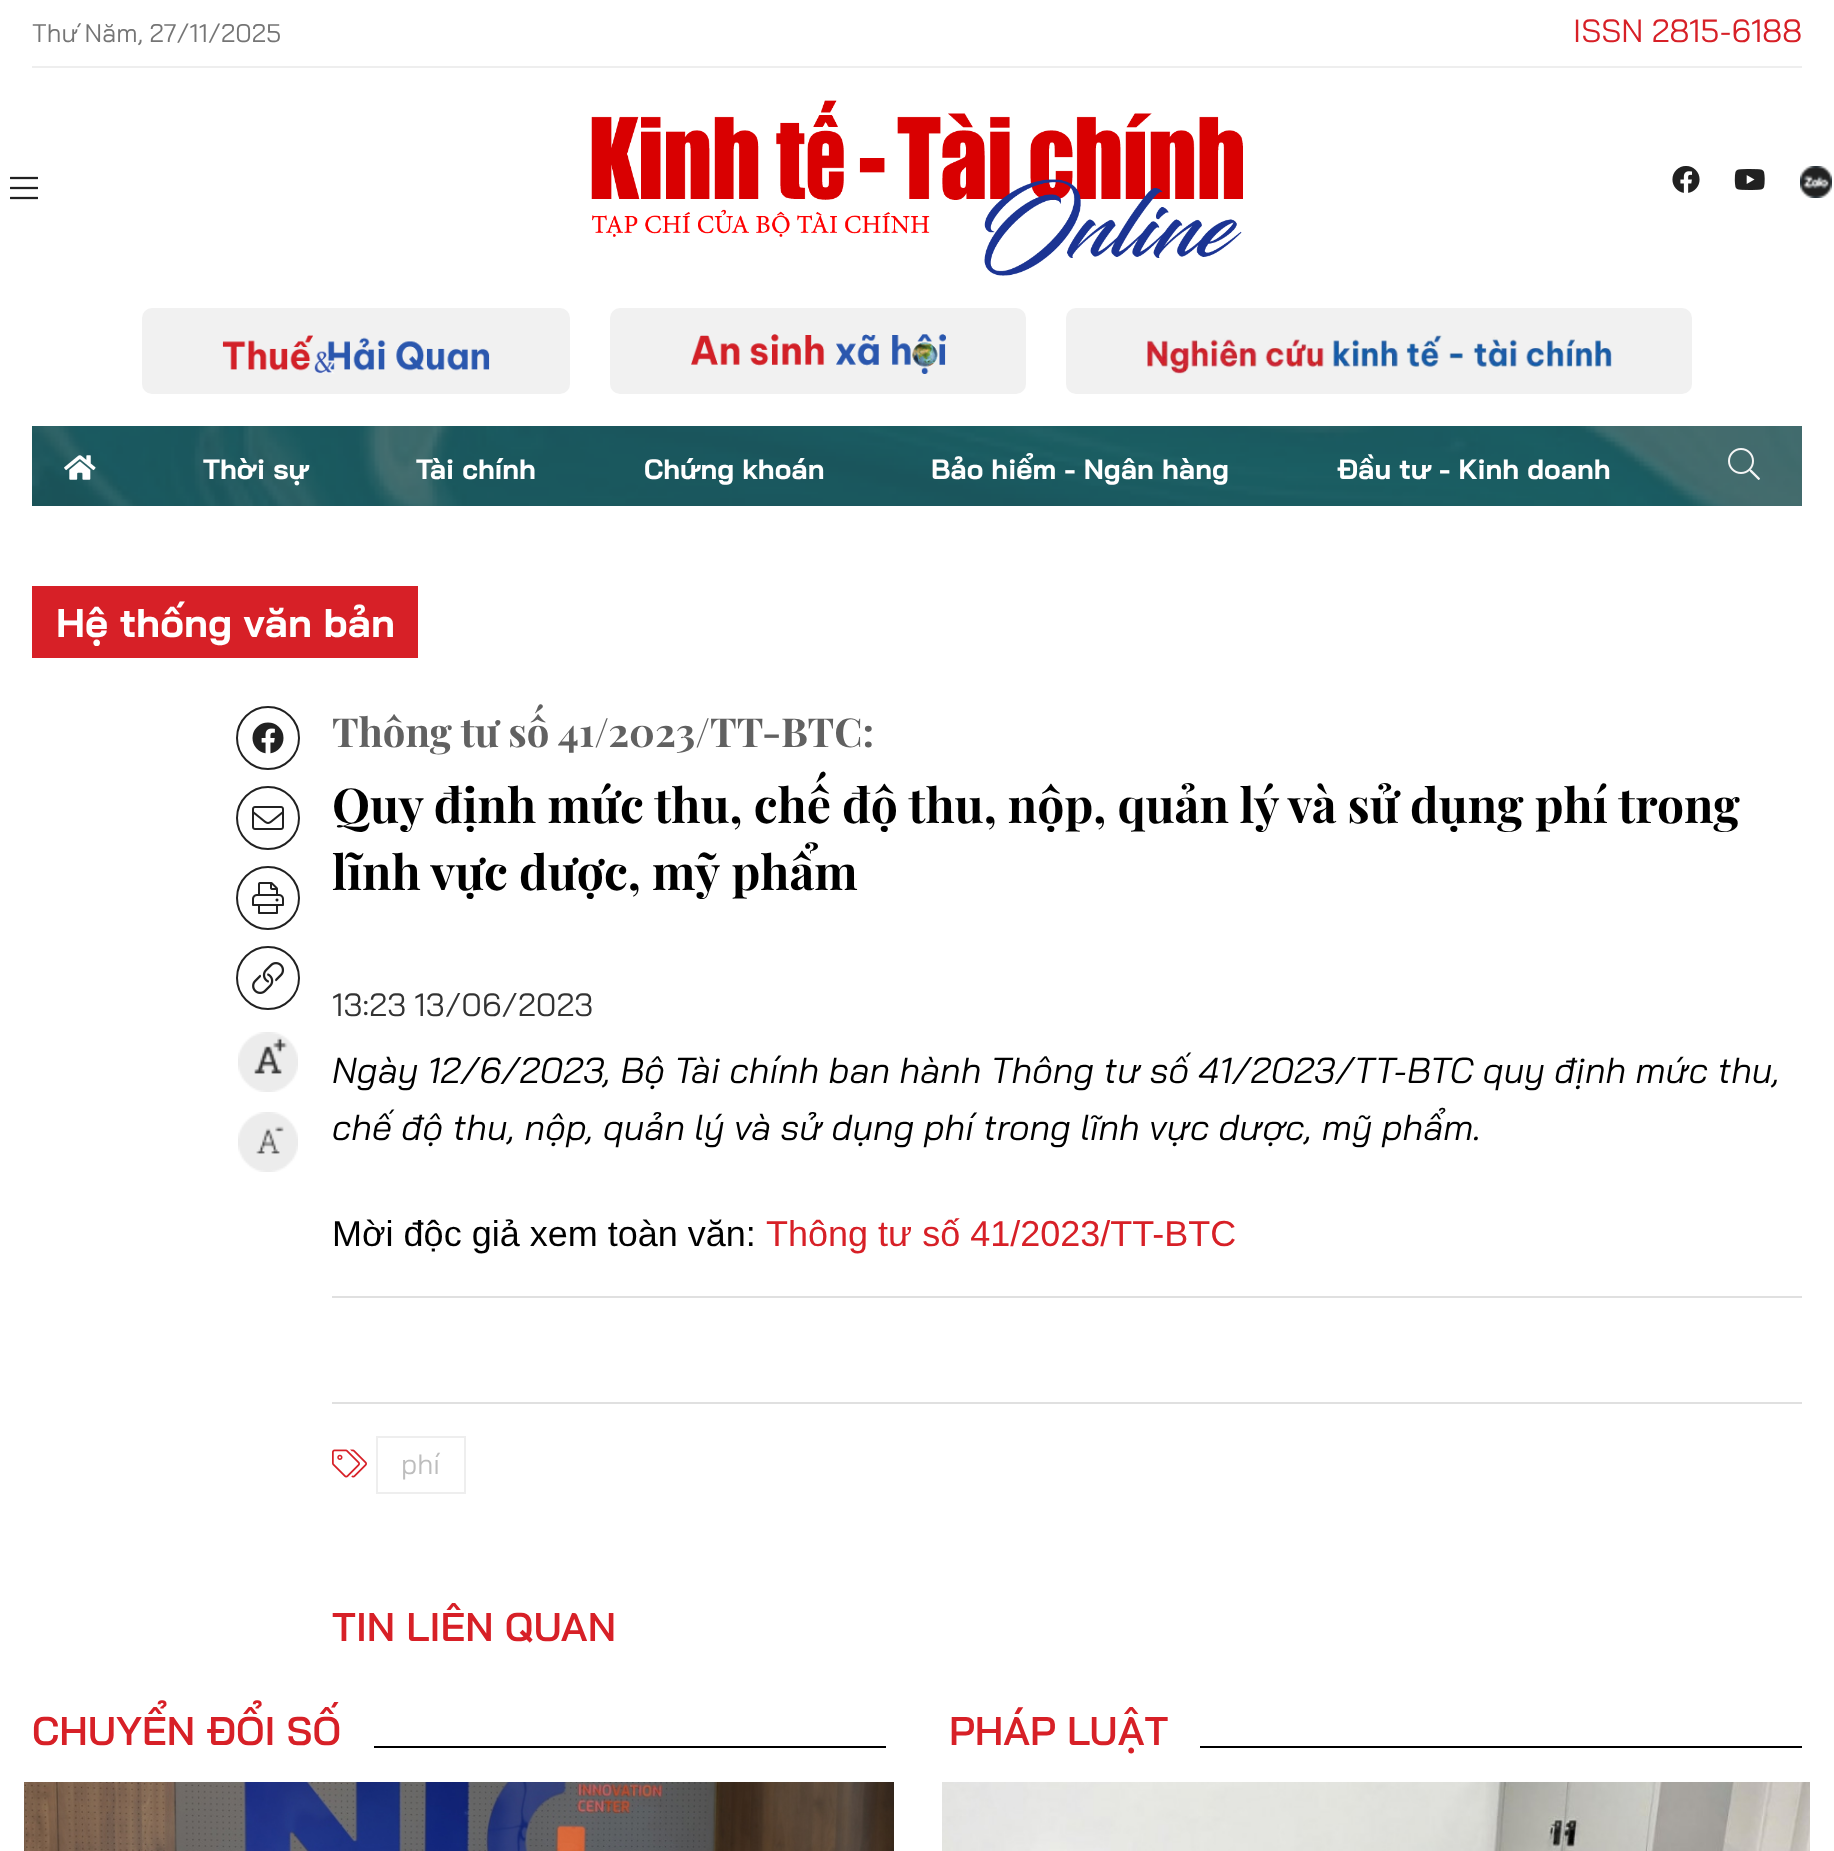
(async () => {
    const canvas = document.querySelector("canvas");
    canvas.width = 1834;
    canvas.height = 1851;
    const context = canvas.getContext("2d");
    context.miterLimit = 4;
    context.fontKerning = "normal";
    function write(s, x, y, font, color) {
        context.font = font;
        context.fillStyle = color;
        context.fillText(s, x, y);
    }
    function block(x, y, w, h, color) {
        context.fillStyle = color;
        context.fillRect(x, y, w, h);
    }
    function card(x, y, w, h, r, color) {
        context.fillStyle = color;
        context.beginPath();
        context.roundRect(x, y, w, h, r);
        context.fill();
    }
    async function photo(src, x, y, w, h) {
        const img = new Image();
        img.src = src;
        await img.decode();
        context.drawImage(img, x, y, w, h);
    }

    block(0, 0, 1834, 1851, "rgb(255, 255, 255)");
    write("Thứ Năm, 27/11/2025", 32, 42, "25.5px Bai Jamjuree", "rgb(117, 117, 117)");
    write("ISSN 2815-6188", 1573, 42, "32px Bai Jamjuree", "rgb(215, 32, 39)");
    block(32, 66, 1770, 2, "rgb(238, 238, 238)");
    await photo("media/1.png", 10, 176, 28, 24);
    await photo("media/2.png", 591, 100, 652, 176);
    await photo("media/3.png", 1672, 166, 28, 27);
    await photo("media/4.png", 1734, 169, 31, 21);
    await photo("media/5.png", 1800, 166, 32, 32);
    card(142, 308, 428, 86, 10, "rgb(241, 241, 241)");
    await photo("media/6.png", 222, 335, 268, 39);
    card(610, 308, 416, 86, 10, "rgb(241, 241, 241)");
    await photo("media/7.png", 691, 334, 255, 40);
    card(1066, 308, 626, 86, 10, "rgb(241, 241, 241)");
    await photo("media/8.png", 1147, 335, 465, 39);
    await photo("media/9.png", 32, 426, 1770, 80);
    await photo("media/10.png", 64, 455, 32, 25);
    write("Thời sự", 203, 479, "bold 28px Bai Jamjuree", "rgb(255, 255, 255)");
    write("Tài chính", 416, 479, "bold 28px Bai Jamjuree", "rgb(255, 255, 255)");
    write("Chứng khoán", 644, 479, "bold 28px Bai Jamjuree", "rgb(255, 255, 255)");
    write("Bảo hiểm - Ngân hàng", 931, 479, "bold 28px Bai Jamjuree", "rgb(255, 255, 255)");
    write("Đầu tư - Kinh doanh", 1337, 479, "bold 28px Bai Jamjuree", "rgb(255, 255, 255)");
    await photo("media/11.png", 1728, 448, 32, 32);
    block(32, 586, 386, 72, "rgb(215, 32, 39)");
    write("Hệ thống văn bản", 56, 637, "bold 40px Bai Jamjuree", "rgb(255, 255, 255)");
    context.beginPath();
    context.arc(268, 738, 31, 0, Math.PI * 2);
    context.strokeStyle = "rgb(33, 33, 33)";
    context.lineWidth = 2;
    context.stroke();
    await photo("media/12.png", 252, 722, 32, 32);
    context.beginPath();
    context.arc(268, 818, 31, 0, Math.PI * 2);
    context.stroke();
    await photo("media/13.png", 252, 806, 32, 24);
    context.beginPath();
    context.arc(268, 898, 31, 0, Math.PI * 2);
    context.stroke();
    await photo("media/14.png", 252, 882, 32, 32);
    context.beginPath();
    context.arc(268, 978, 31, 0, Math.PI * 2);
    context.stroke();
    await photo("media/15.png", 252, 962, 33, 32);
    await photo("media/16.png", 238, 1032, 60, 60);
    await photo("media/17.png", 238, 1112, 60, 60);
    write("Thông tư số 41/2023/TT-BTC:", 332, 747, "bold 40px Playfair Display", "rgb(97, 97, 97)");
    write("Quy định mức thu, chế độ thu, nộp, quản lý và sử dụng phí trong", 332, 823, "bold 48px Playfair Display", "rgb(0, 0, 0)");
    write("lĩnh vực dược, mỹ phẩm", 332, 890, "bold 48px Playfair Display", "rgb(0, 0, 0)");
    write("13:23 13/06/2023", 332, 1016, "32px Bai Jamjuree", "rgb(51, 51, 51)");
    write("Ngày 12/6/2023, Bộ Tài chính ban hành Thông tư số 41/2023/TT-BTC quy định mức thu,", 332, 1083, "italic 36px Bai Jamjuree", "rgb(0, 0, 0)");
    write("chế độ thu, nộp, quản lý và sử dụng phí trong lĩnh vực dược, mỹ phẩm.", 332, 1140, "italic 36px Bai Jamjuree", "rgb(0, 0, 0)");
    write("Mời độc giả xem toàn văn:", 332, 1246, "36px Liberation Sans", "rgb(0, 0, 0)");
    write("Thông tư số 41/2023/TT-BTC", 766, 1246, "36px Liberation Sans", "rgb(215, 32, 39)");
    block(332, 1296, 1470, 2, "rgb(224, 224, 224)");
    block(332, 1402, 1470, 2, "rgb(224, 224, 224)");
    await photo("media/18.png", 332, 1449, 35, 29);
    context.strokeStyle = "rgb(238, 238, 238)";
    context.strokeRect(377, 1437, 88, 56);
    write("phí", 401, 1474, "28px Bai Jamjuree", "rgb(189, 189, 189)");
    write("TIN LIÊN QUAN", 332, 1641, "600 40px Bai Jamjuree", "rgb(215, 32, 39)");
    write("CHUYỂN ĐỔI SỐ", 32, 1745, "600 40px Bai Jamjuree", "rgb(215, 32, 39)");
    block(374, 1746, 512, 2, "rgb(0, 0, 0)");
    await photo("media/19.png", 24, 1782, 870, 69);
    write("PHÁP LUẬT", 949, 1745, "600 40px Bai Jamjuree", "rgb(215, 32, 39)");
    block(1200, 1746, 602, 2, "rgb(0, 0, 0)");
    await photo("media/20.png", 942, 1782, 868, 69);
})();
